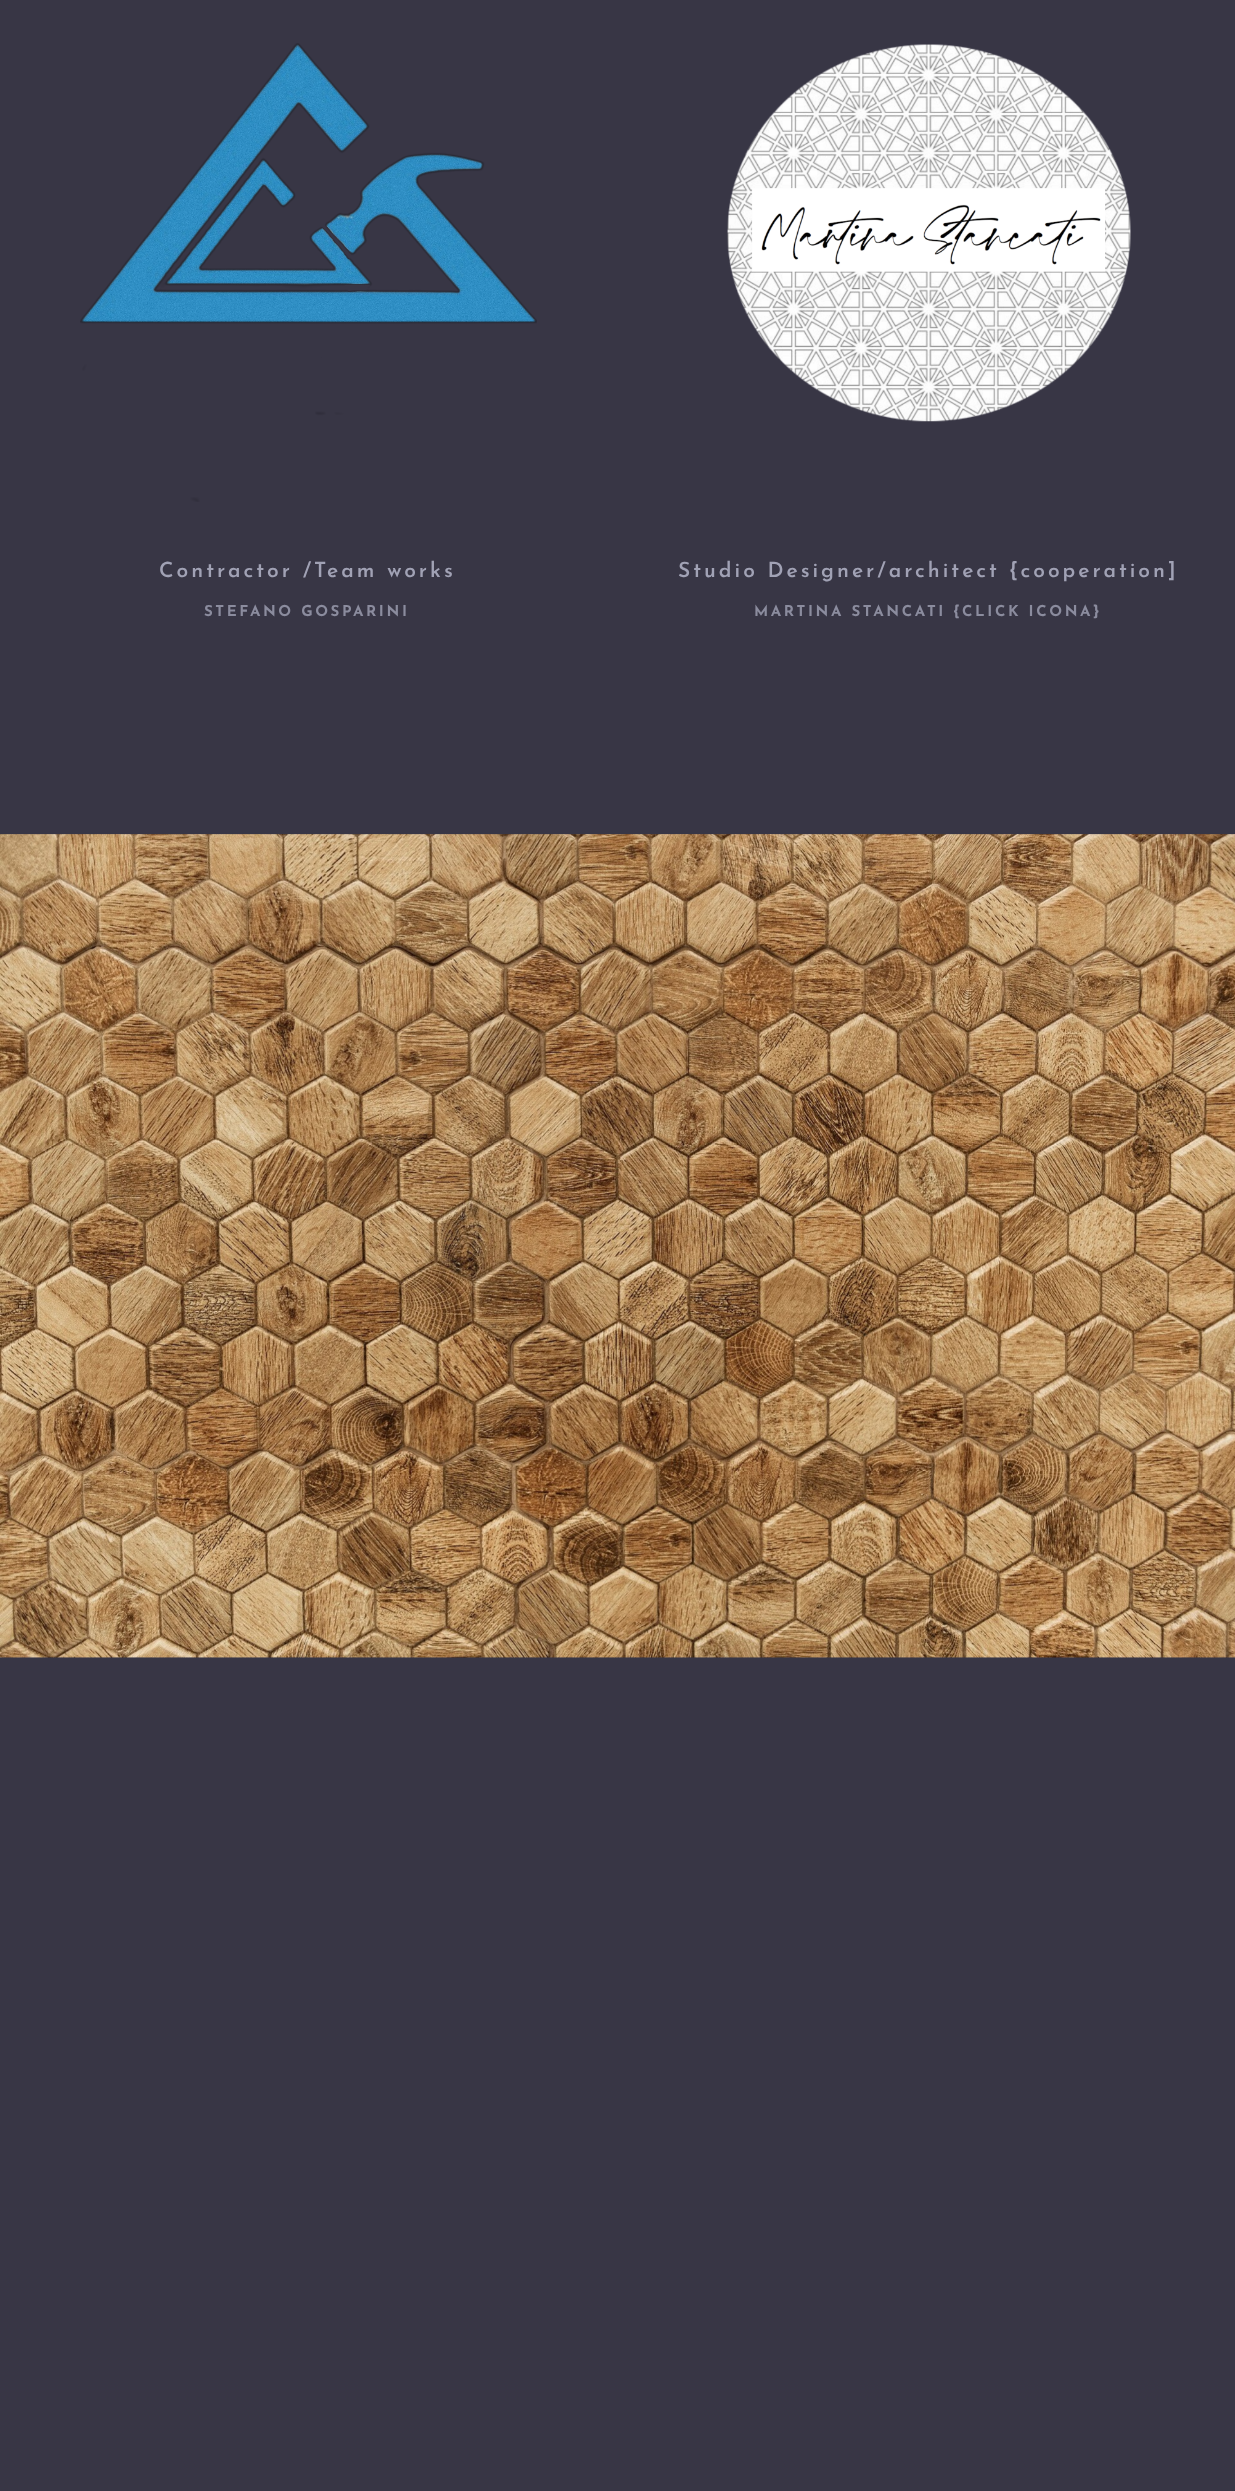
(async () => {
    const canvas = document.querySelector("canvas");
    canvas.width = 1235;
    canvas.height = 2491;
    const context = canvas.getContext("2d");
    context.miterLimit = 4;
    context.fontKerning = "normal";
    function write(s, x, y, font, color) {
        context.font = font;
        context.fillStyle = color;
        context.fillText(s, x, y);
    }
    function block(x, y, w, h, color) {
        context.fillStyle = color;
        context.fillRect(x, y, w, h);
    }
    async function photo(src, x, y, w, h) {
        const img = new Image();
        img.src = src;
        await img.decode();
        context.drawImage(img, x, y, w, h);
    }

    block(0, 0, 1235, 2491, "rgb(56, 54, 69)");
    await photo("media/1.png", 0, 834, 1235, 824);
    await photo("media/2.png", 80, 43, 457, 459);
    context.letterSpacing = "3px";
    write("Contractor /Team works", 159, 577, "600 21px Josefin Sans", "rgb(161, 162, 181)");
    context.letterSpacing = "2.6px";
    write("STEFANO GOSPARINI", 204, 616, "bold 15px Josefin Sans", "rgb(139, 140, 158)");
    await photo("media/3.png", 727, 44, 404, 378);
    context.letterSpacing = "3px";
    write("Studio Designer/architect {cooperation]", 678, 577, "600 21px Josefin Sans", "rgb(161, 162, 181)");
    context.letterSpacing = "2.6px";
    write("MARTINA STANCATI {CLICK ICONA}", 754, 616, "bold 15px Josefin Sans", "rgb(139, 140, 158)");
})();
